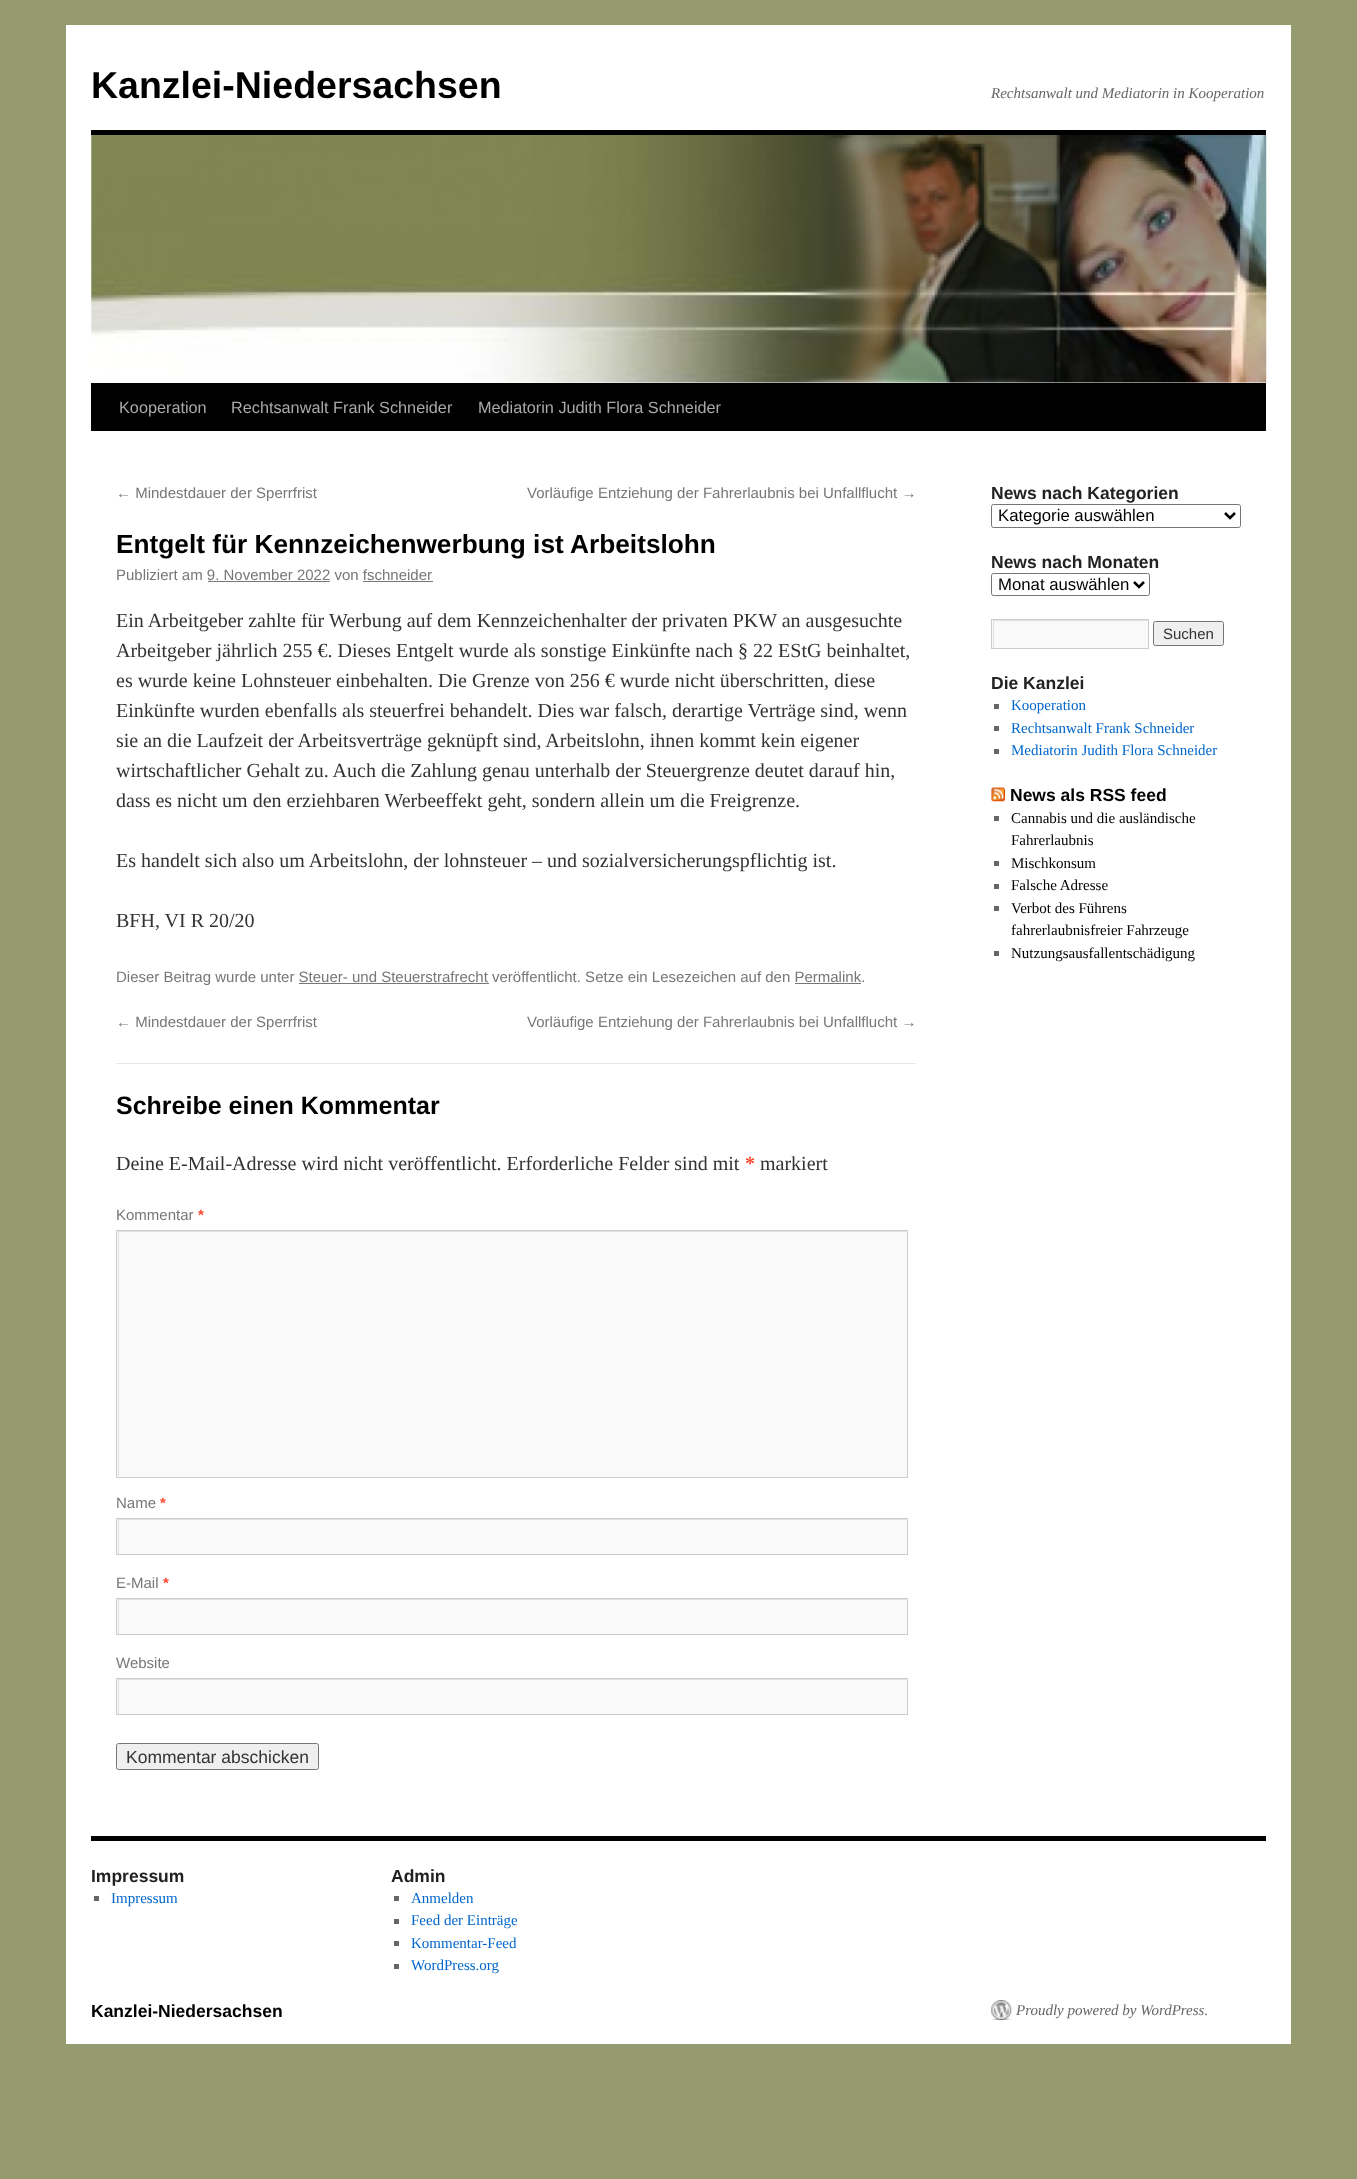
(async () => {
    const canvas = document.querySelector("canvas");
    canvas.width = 1357;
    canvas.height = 2179;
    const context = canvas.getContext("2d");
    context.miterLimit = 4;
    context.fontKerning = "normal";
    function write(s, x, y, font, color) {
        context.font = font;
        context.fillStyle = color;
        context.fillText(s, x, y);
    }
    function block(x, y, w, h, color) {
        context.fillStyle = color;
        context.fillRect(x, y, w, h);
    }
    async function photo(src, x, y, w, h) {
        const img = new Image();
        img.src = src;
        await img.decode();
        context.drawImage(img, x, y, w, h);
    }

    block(0, 0, 1357, 2179, "rgb(149, 154, 111)");
    block(66, 25, 1225, 2019, "rgb(255, 255, 255)");
    write("Kanzlei-Niedersachsen", 91, 98, "bold 37.5px Liberation Sans", "rgb(0, 0, 0)");
    write("Rechtsanwalt und Mediatorin in Kooperation", 991, 98, "italic 15px Liberation Serif", "rgb(102, 102, 102)");
    block(91, 130, 1175, 5, "rgb(0, 0, 0)");
    block(91, 383, 1175, 48, "rgb(0, 0, 0)");
    await photo("media/1.png", 91, 135, 1176, 248);
    write("Kooperation", 119, 413, "16.25px Liberation Sans", "rgb(170, 170, 170)");
    write("Rechtsanwalt Frank Schneider", 231, 413, "16.25px Liberation Sans", "rgb(170, 170, 170)");
    write("Mediatorin Judith Flora Schneider", 478, 413, "16.25px Liberation Sans", "rgb(170, 170, 170)");
    write("← Mindestdauer der Sperrfrist", 116, 498, "15px Liberation Sans", "rgb(119, 119, 119)");
    write("Vorläufige Entziehung der Fahrerlaubnis bei Unfallflucht →", 527, 498, "15px Liberation Sans", "rgb(119, 119, 119)");
    write("Entgelt für Kennzeichenwerbung ist Arbeitslohn", 116, 553, "bold 26.25px Liberation Sans", "rgb(0, 0, 0)");
    write("Publiziert am 9. November 2022 von fschneider", 116, 580, "15px Liberation Sans", "rgb(119, 119, 119)");
    block(208, 581, 122, 1, "rgb(119, 119, 119)");
    block(363, 581, 70, 1, "rgb(119, 119, 119)");
    write("Ein Arbeitgeber zahlte für Werbung auf dem Kennzeichenhalter der privaten PKW an ausgesuchte", 116, 627, "20px Liberation Serif", "rgb(51, 51, 51)");
    write("Arbeitgeber jährlich 255 €. Dieses Entgelt wurde als sonstige Einkünfte nach § 22 EStG beinhaltet,", 116, 657, "20px Liberation Serif", "rgb(51, 51, 51)");
    write("es wurde keine Lohnsteuer einbehalten. Die Grenze von 256 € wurde nicht überschritten, diese", 116, 687, "20px Liberation Serif", "rgb(51, 51, 51)");
    write("Einkünfte wurden ebenfalls als steuerfrei behandelt. Dies war falsch, derartige Verträge sind, wenn", 116, 717, "20px Liberation Serif", "rgb(51, 51, 51)");
    write("sie an die Laufzeit der Arbeitsverträge geknüpft sind, Arbeitslohn, ihnen kommt kein eigener", 116, 747, "20px Liberation Serif", "rgb(51, 51, 51)");
    write("wirtschaftlicher Gehalt zu. Auch die Zahlung genau unterhalb der Steuergrenze deutet darauf hin,", 116, 777, "20px Liberation Serif", "rgb(51, 51, 51)");
    write("dass es nicht um den erziehbaren Werbeeffekt geht, sondern allein um die Freigrenze.", 116, 807, "20px Liberation Serif", "rgb(51, 51, 51)");
    write("Es handelt sich also um Arbeitslohn, der lohnsteuer – und sozialversicherungspflichtig ist.", 116, 867, "20px Liberation Serif", "rgb(51, 51, 51)");
    write("BFH, VI R 20/20", 116, 927, "20px Liberation Serif", "rgb(51, 51, 51)");
    write("Dieser Beitrag wurde unter Steuer- und Steuerstrafrecht veröffentlicht. Setze ein Lesezeichen auf den Permalink.", 116, 982, "15px Liberation Sans", "rgb(119, 119, 119)");
    block(299, 983, 190, 1, "rgb(119, 119, 119)");
    block(795, 983, 66, 1, "rgb(119, 119, 119)");
    write("← Mindestdauer der Sperrfrist", 116, 1027, "15px Liberation Sans", "rgb(119, 119, 119)");
    write("Vorläufige Entziehung der Fahrerlaubnis bei Unfallflucht →", 527, 1027, "15px Liberation Sans", "rgb(119, 119, 119)");
    block(116, 1063, 800, 1, "rgb(231, 231, 231)");
    write("Schreibe einen Kommentar", 116, 1114, "bold 25px Liberation Sans", "rgb(0, 0, 0)");
    write("Deine E-Mail-Adresse wird nicht veröffentlicht. Erforderliche Felder sind mit", 116, 1170, "20px Liberation Serif", "rgb(51, 51, 51)");
    write("*", 745, 1170, "bold 20px Liberation Serif", "rgb(255, 75, 51)");
    write("markiert", 760, 1170, "20px Liberation Serif", "rgb(51, 51, 51)");
    write("Kommentar", 116, 1220, "15px Liberation Sans", "rgb(119, 119, 119)");
    write("*", 198, 1220, "bold 15px Liberation Sans", "rgb(255, 75, 51)");
    block(117, 1231, 790, 246, "rgb(249, 249, 249)");
    context.save();
    context.beginPath();
    context.rect(118, 1231, 788, 245);
    context.clip();
    context.fillStyle = "rgb(224, 224, 224)";
    context.beginPath();
    context.moveTo(-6, 1108);
    context.lineTo(1030, 1108);
    context.lineTo(1030, 1600);
    context.lineTo(-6, 1600);
    context.closePath();
    context.moveTo(119, 1232);
    context.lineTo(908, 1232);
    context.lineTo(908, 1478);
    context.lineTo(119, 1478);
    context.closePath();
    context.fill("evenodd");
    context.restore();
    context.strokeStyle = "rgb(204, 204, 204)";
    context.strokeRect(116.5, 1230.5, 791, 247);
    write("Name", 116, 1508, "15px Liberation Sans", "rgb(119, 119, 119)");
    write("*", 160, 1508, "bold 15px Liberation Sans", "rgb(255, 75, 51)");
    block(117, 1519, 790, 35, "rgb(249, 249, 249)");
    context.save();
    context.beginPath();
    context.rect(118, 1519, 788, 35);
    context.clip();
    context.fillStyle = "rgb(224, 224, 224)";
    context.beginPath();
    context.moveTo(-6, 1395);
    context.lineTo(1030, 1395);
    context.lineTo(1030, 1678);
    context.lineTo(-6, 1678);
    context.closePath();
    context.moveTo(119, 1520);
    context.lineTo(908, 1520);
    context.lineTo(908, 1555);
    context.lineTo(119, 1555);
    context.closePath();
    context.fill("evenodd");
    context.restore();
    context.strokeRect(116.5, 1518.5, 791, 36);
    write("E-Mail", 116, 1588, "15px Liberation Sans", "rgb(119, 119, 119)");
    write("*", 163, 1588, "bold 15px Liberation Sans", "rgb(255, 75, 51)");
    block(117, 1599, 790, 35, "rgb(249, 249, 249)");
    context.save();
    context.beginPath();
    context.rect(118, 1599, 788, 35);
    context.clip();
    context.fillStyle = "rgb(224, 224, 224)";
    context.beginPath();
    context.moveTo(-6, 1475);
    context.lineTo(1030, 1475);
    context.lineTo(1030, 1758);
    context.lineTo(-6, 1758);
    context.closePath();
    context.moveTo(119, 1600);
    context.lineTo(908, 1600);
    context.lineTo(908, 1635);
    context.lineTo(119, 1635);
    context.closePath();
    context.fill("evenodd");
    context.restore();
    context.strokeRect(116.5, 1598.5, 791, 36);
    write("Website", 116, 1668, "15px Liberation Sans", "rgb(119, 119, 119)");
    block(117, 1679, 790, 35, "rgb(249, 249, 249)");
    context.save();
    context.beginPath();
    context.rect(118, 1679, 788, 35);
    context.clip();
    context.fillStyle = "rgb(224, 224, 224)";
    context.beginPath();
    context.moveTo(-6, 1555);
    context.lineTo(1030, 1555);
    context.lineTo(1030, 1838);
    context.lineTo(-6, 1838);
    context.closePath();
    context.moveTo(119, 1680);
    context.lineTo(908, 1680);
    context.lineTo(908, 1715);
    context.lineTo(119, 1715);
    context.closePath();
    context.fill("evenodd");
    context.restore();
    context.strokeRect(116.5, 1678.5, 791, 36);
    context.fillStyle = "rgb(239, 239, 239)";
    context.beginPath();
    context.roundRect(116.5, 1743.5, 202, 26, 2);
    context.fill();
    context.strokeStyle = "rgb(118, 118, 118)";
    context.stroke();
    write("Kommentar abschicken", 126, 1763, "17.5px Liberation Sans", "rgb(51, 51, 51)");
    write("News nach Kategorien", 991, 499, "bold 17.5px Liberation Sans", "rgb(34, 34, 34)");
    context.beginPath();
    context.roundRect(991.5, 504.5, 249, 23, 2);
    context.stroke();
    context.beginPath();
    context.moveTo(1225, 513);
    context.lineTo(1230, 518);
    context.lineTo(1235, 513);
    context.strokeStyle = "rgb(0, 0, 0)";
    context.lineWidth = 2.5;
    context.stroke();
    write("Kategorie auswählen", 998, 521, "16.75px Liberation Sans", "rgb(0, 0, 0)");
    write("News nach Monaten", 991, 568, "bold 17.5px Liberation Sans", "rgb(34, 34, 34)");
    context.beginPath();
    context.roundRect(991.5, 573.5, 158, 22, 2);
    context.strokeStyle = "rgb(118, 118, 118)";
    context.lineWidth = 1;
    context.stroke();
    context.beginPath();
    context.moveTo(1134, 582);
    context.lineTo(1139, 587);
    context.lineTo(1144, 582);
    context.strokeStyle = "rgb(0, 0, 0)";
    context.lineWidth = 2.5;
    context.stroke();
    write("Monat auswählen", 998, 590, "16.75px Liberation Sans", "rgb(0, 0, 0)");
    block(992, 620, 156, 28, "rgb(249, 249, 249)");
    context.save();
    context.beginPath();
    context.rect(993, 620, 155, 28);
    context.clip();
    context.fillStyle = "rgb(224, 224, 224)";
    context.beginPath();
    context.moveTo(869, 496);
    context.lineTo(1271, 496);
    context.lineTo(1271, 771);
    context.lineTo(869, 771);
    context.closePath();
    context.moveTo(994, 621);
    context.lineTo(1149, 621);
    context.lineTo(1149, 649);
    context.lineTo(994, 649);
    context.closePath();
    context.fill("evenodd");
    context.restore();
    context.strokeStyle = "rgb(204, 204, 204)";
    context.lineWidth = 1;
    context.strokeRect(991.5, 619.5, 157, 29);
    context.fillStyle = "rgb(239, 239, 239)";
    context.beginPath();
    context.roundRect(1153.5, 621.5, 70, 24, 2);
    context.fill();
    context.strokeStyle = "rgb(118, 118, 118)";
    context.stroke();
    write("Suchen", 1163, 639, "15px Liberation Sans", "rgb(51, 51, 51)");
    write("Die Kanzlei", 991, 689, "bold 17.5px Liberation Sans", "rgb(34, 34, 34)");
    block(994, 704, 5, 5, "rgb(102, 102, 102)");
    write("Kooperation", 1011, 710, "15px Liberation Serif", "rgb(0, 102, 204)");
    block(994, 726, 5, 5, "rgb(102, 102, 102)");
    write("Rechtsanwalt Frank Schneider", 1011, 733, "15px Liberation Serif", "rgb(0, 102, 204)");
    block(994, 749, 5, 5, "rgb(102, 102, 102)");
    write("Mediatorin Judith Flora Schneider", 1011, 755, "15px Liberation Serif", "rgb(0, 102, 204)");
    await photo("media/2.png", 991, 787, 14, 15);
    write("News als RSS feed", 1010, 801, "bold 17.5px Liberation Sans", "rgb(0, 0, 0)");
    block(994, 816, 5, 5, "rgb(102, 102, 102)");
    write("Cannabis und die ausländische", 1011, 823, "15px Liberation Serif", "rgb(0, 0, 0)");
    write("Fahrerlaubnis", 1011, 845, "15px Liberation Serif", "rgb(0, 0, 0)");
    block(994, 861, 5, 5, "rgb(102, 102, 102)");
    write("Mischkonsum", 1011, 868, "15px Liberation Serif", "rgb(0, 0, 0)");
    block(994, 884, 5, 5, "rgb(102, 102, 102)");
    write("Falsche Adresse", 1011, 890, "15px Liberation Serif", "rgb(0, 0, 0)");
    block(994, 906, 5, 5, "rgb(102, 102, 102)");
    write("Verbot des Führens", 1011, 913, "15px Liberation Serif", "rgb(0, 0, 0)");
    write("fahrerlaubnisfreier Fahrzeuge", 1011, 935, "15px Liberation Serif", "rgb(0, 0, 0)");
    block(994, 951, 5, 5, "rgb(102, 102, 102)");
    write("Nutzungsausfallentschädigung", 1011, 958, "15px Liberation Serif", "rgb(0, 0, 0)");
    block(91, 1836, 1175, 5, "rgb(0, 0, 0)");
    write("Impressum", 91, 1882, "bold 17.5px Liberation Sans", "rgb(34, 34, 34)");
    block(94, 1896, 5, 5, "rgb(102, 102, 102)");
    write("Impressum", 111, 1903, "15px Liberation Serif", "rgb(0, 102, 204)");
    write("Admin", 391, 1882, "bold 17.5px Liberation Sans", "rgb(34, 34, 34)");
    block(394, 1896, 5, 5, "rgb(102, 102, 102)");
    write("Anmelden", 411, 1903, "15px Liberation Serif", "rgb(0, 102, 204)");
    block(394, 1919, 5, 5, "rgb(102, 102, 102)");
    write("Feed der Einträge", 411, 1925, "15px Liberation Serif", "rgb(0, 102, 204)");
    block(394, 1941, 5, 5, "rgb(102, 102, 102)");
    write("Kommentar-Feed", 411, 1948, "15px Liberation Serif", "rgb(0, 102, 204)");
    block(394, 1964, 5, 5, "rgb(102, 102, 102)");
    write("WordPress.org", 411, 1970, "15px Liberation Serif", "rgb(0, 102, 204)");
    write("Kanzlei-Niedersachsen", 91, 2017, "bold 17.5px Liberation Sans", "rgb(0, 0, 0)");
    await photo("media/3.png", 991, 2000, 21, 20);
    write("Proudly powered by WordPress.", 1016, 2015, "italic 15px Liberation Serif", "rgb(102, 102, 102)");
})();
